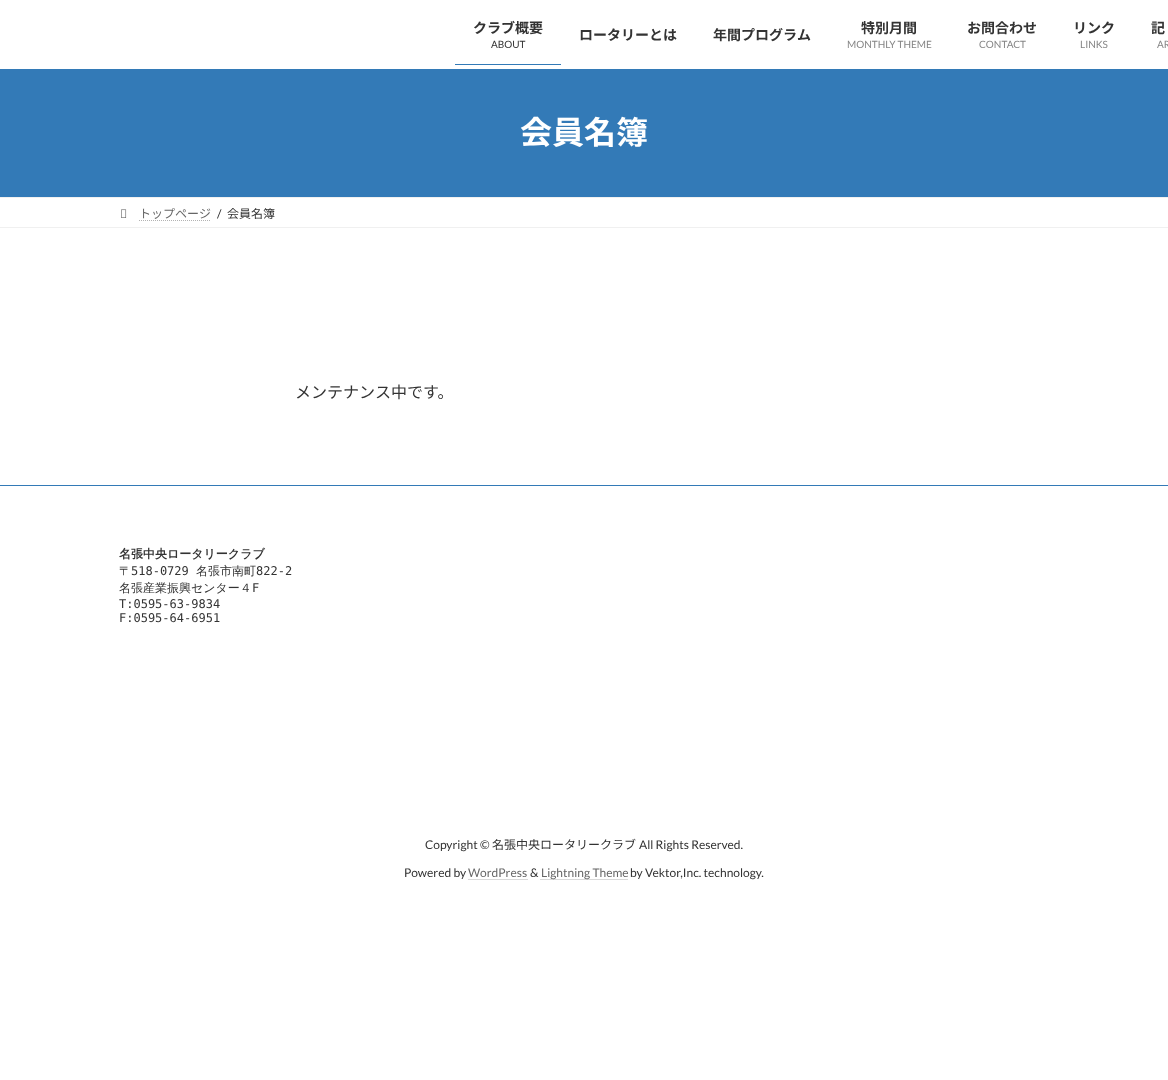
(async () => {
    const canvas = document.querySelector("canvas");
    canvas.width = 1168;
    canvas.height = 1080;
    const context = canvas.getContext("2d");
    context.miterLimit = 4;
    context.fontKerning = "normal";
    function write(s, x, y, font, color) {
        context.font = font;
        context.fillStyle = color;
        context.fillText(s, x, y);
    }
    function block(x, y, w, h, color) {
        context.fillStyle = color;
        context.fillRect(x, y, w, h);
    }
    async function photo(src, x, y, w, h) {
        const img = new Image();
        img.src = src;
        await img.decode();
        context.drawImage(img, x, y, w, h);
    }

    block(0, 0, 1168, 1080, "rgb(255, 255, 255)");
    write("クラブ概要", 473, 33, "bold 14px Noto Sans JP", "rgb(51, 51, 51)");
    write("ABOUT", 491, 48, "10px Lato", "rgb(51, 51, 51)");
    block(455, 64, 106, 1, "rgb(51, 122, 183)");
    write("ロータリーとは", 579, 40, "bold 14px Noto Sans JP", "rgb(51, 51, 51)");
    write("年間プログラム", 713, 40, "bold 14px Noto Sans JP", "rgb(51, 51, 51)");
    write("特別月間", 861, 33, "bold 14px Noto Sans JP", "rgb(51, 51, 51)");
    write("MONTHLY THEME", 847, 48, "10px Lato", "rgb(133, 133, 133)");
    write("お問合わせ", 967, 33, "bold 14px Noto Sans JP", "rgb(51, 51, 51)");
    write("CONTACT", 979, 48, "10px Lato", "rgb(133, 133, 133)");
    write("リンク", 1073, 33, "bold 14px Noto Sans JP", "rgb(51, 51, 51)");
    write("LINKS", 1080, 48, "10px Lato", "rgb(133, 133, 133)");
    write("記", 1151, 33, "bold 14px Noto Sans JP", "rgb(51, 51, 51)");
    write("AR", 1157, 48, "10px Lato", "rgb(133, 133, 133)");
    block(0, 69, 1168, 128, "rgb(51, 122, 183)");
    write("会員名簿", 520, 144, "bold 32px Noto Sans JP", "rgb(255, 255, 255)");
    block(0, 197, 1168, 1, "rgb(240, 240, 240)");
    block(0, 227, 1168, 1, "rgb(240, 240, 240)");
    await photo("media/1.png", 121, 209, 6, 9);
    write("トップページ", 139, 218, "12px Noto Sans JP", "rgb(102, 102, 102)");
    context.beginPath();
    context.moveTo(139, 220.5);
    context.lineTo(210.5, 220.5);
    context.strokeStyle = "rgb(179, 179, 179)";
    context.setLineDash([1, 1]);
    context.stroke();
    write("/", 217, 218, "12px Lato", "rgb(51, 51, 51)");
    write("会員名簿", 227, 218, "12px Noto Sans JP", "rgb(51, 51, 51)");
    write("メンテナンス中です。", 295, 398, "16px Noto Sans JP", "rgb(51, 51, 51)");
    block(0, 485, 1168, 1, "rgb(51, 122, 183)");
    write("名張中央ロータリークラブ", 119, 558, "bold 12px WenQuanYi Zen Hei", "rgb(51, 51, 51)");
    write("〒", 119, 575, "500 12px WenQuanYi Zen Hei", "rgb(51, 51, 51)");
    write("518-0729", 131, 575, "12px DejaVu Sans Mono", "rgb(51, 51, 51)");
    write("名張市南町", 196, 575, "500 12px WenQuanYi Zen Hei", "rgb(51, 51, 51)");
    write("822-2", 256, 575, "12px DejaVu Sans Mono", "rgb(51, 51, 51)");
    write("名張産業振興センター４", 119, 592, "500 12px WenQuanYi Zen Hei", "rgb(51, 51, 51)");
    write("F", 252, 592, "12px DejaVu Sans Mono", "rgb(51, 51, 51)");
    write("T:0595-63-9834", 119, 608, "12px DejaVu Sans Mono", "rgb(51, 51, 51)");
    write("F:0595-64-6951", 119, 622, "12px DejaVu Sans Mono", "rgb(51, 51, 51)");
    write("Copyright ©", 425, 849, "12px Lato", "rgb(51, 51, 51)");
    write("名張中央ロータリークラブ", 492, 849, "12px Noto Sans JP", "rgb(51, 51, 51)");
    write("All Rights Reserved.", 639, 849, "12px Lato", "rgb(51, 51, 51)");
    write("Powered by", 404, 877, "12px Lato", "rgb(51, 51, 51)");
    write("WordPress", 468, 877, "12px Lato", "rgb(102, 102, 102)");
    context.beginPath();
    context.moveTo(468.5, 879.5);
    context.lineTo(527.5, 879.5);
    context.stroke();
    write("&", 530, 877, "12px Lato", "rgb(51, 51, 51)");
    context.beginPath();
    context.moveTo(540.5, 879.5);
    context.lineTo(628, 879.5);
    context.stroke();
    write("Lightning Theme", 541, 877, "12px Lato", "rgb(102, 102, 102)");
    write("by Vektor,Inc. technology.", 630, 877, "12px Lato", "rgb(51, 51, 51)");
})();
